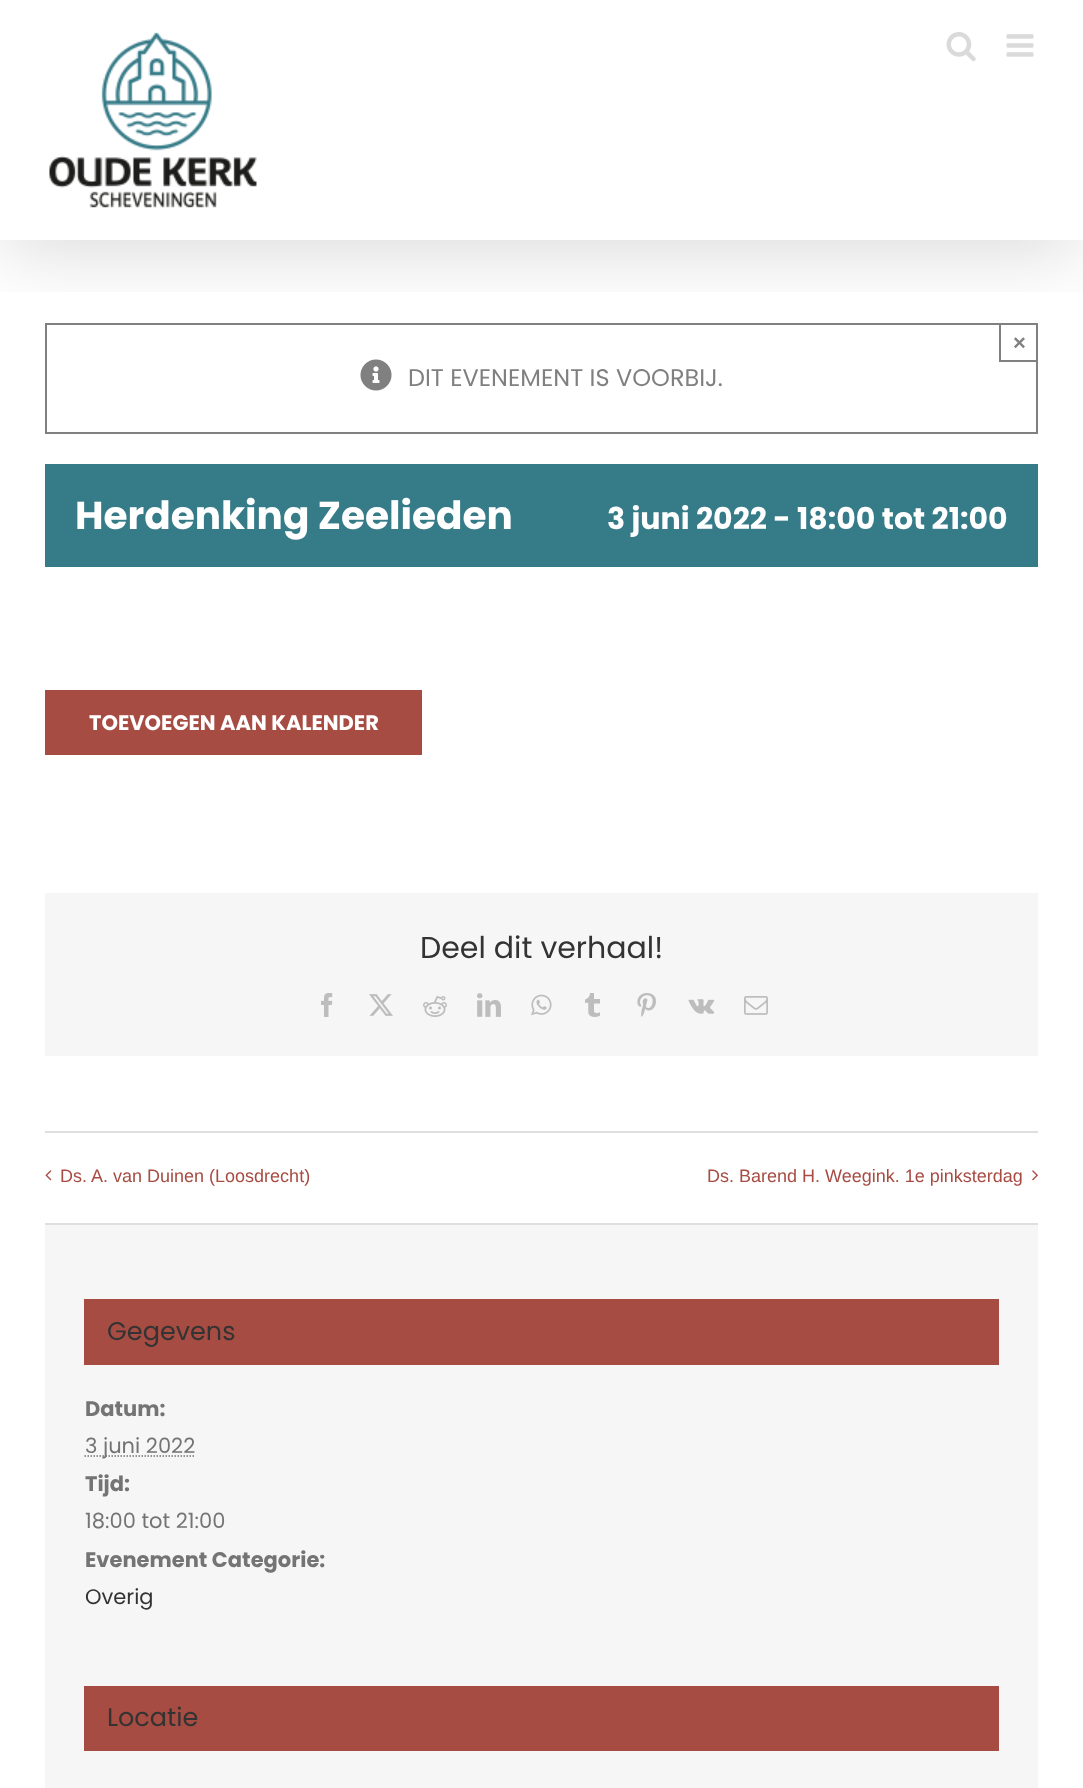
(async () => {
    const canvas = document.querySelector("canvas");
    canvas.width = 1083;
    canvas.height = 1788;
    const context = canvas.getContext("2d");
    context.miterLimit = 4;
    context.fontKerning = "normal";
    function write(s, x, y, font, color) {
        context.font = font;
        context.fillStyle = color;
        context.fillText(s, x, y);
    }
    function block(x, y, w, h, color) {
        context.fillStyle = color;
        context.fillRect(x, y, w, h);
    }
    async function photo(src, x, y, w, h) {
        const img = new Image();
        img.src = src;
        await img.decode();
        context.drawImage(img, x, y, w, h);
    }

    block(0, 0, 1083, 1788, "rgb(255, 255, 255)");
    context.strokeStyle = "rgb(128, 128, 128)";
    context.lineWidth = 2;
    context.strokeRect(46, 324, 991, 109);
    block(999, 360, 39, 2, "rgb(128, 128, 128)");
    block(999, 323, 2, 39, "rgb(128, 128, 128)");
    await photo("media/4.png", 360, 359, 32, 32);
    context.save();
    context.beginPath();
    context.rect(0, 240, 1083, 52);
    context.clip();
    context.fillStyle = "rgba(0, 0, 0, 0.14)";
    context.filter = "blur(37.5px)";
    context.beginPath();
    context.rect(3, 18, 1077, 234);
    context.fill();
    context.filter = "none";
    context.restore();
    await photo("media/1.png", 49, 32, 208, 176);
    await photo("media/2.png", 946, 32, 30, 30);
    await photo("media/3.png", 1006, 34, 28, 23);
    write("×", 1013, 350, "bold 22px Liberation Sans", "rgb(128, 128, 128)");
    write("DIT EVENEMENT IS VOORBIJ.", 408, 386, "24px Poppins", "rgb(128, 128, 128)");
    block(45, 464, 993, 103, "rgb(54, 123, 136)");
    write("Herdenking Zeelieden", 75, 529, "bold 39px Poppins", "rgb(255, 255, 255)");
    write("3 juni 2022 - 18:00 tot 21:00", 607, 529, "bold 30px Poppins", "rgb(255, 255, 255)");
    block(45, 690, 377, 65, "rgb(167, 76, 66)");
    write("TOEVOEGEN AAN KALENDER", 89, 730, "bold 21px Poppins", "rgb(255, 255, 255)");
    block(45, 893, 993, 163, "rgb(246, 246, 246)");
    write("Deel dit verhaal!", 420, 958, "30px Poppins", "rgb(51, 51, 51)");
    await photo("media/5.png", 321, 993, 12, 24);
    await photo("media/6.png", 369, 994, 24, 22);
    await photo("media/7.png", 423, 996, 24, 21);
    await photo("media/8.png", 477, 993, 24, 24);
    await photo("media/9.png", 531, 994, 21, 22);
    await photo("media/10.png", 585, 993, 15, 24);
    await photo("media/11.png", 637, 993, 19, 24);
    await photo("media/12.png", 688, 999, 27, 15);
    await photo("media/13.png", 744, 996, 24, 19);
    block(45, 1131, 993, 2, "rgb(224, 222, 222)");
    block(45, 1223, 993, 2, "rgb(224, 222, 222)");
    await photo("media/14.png", 45, 1170, 7, 11);
    write("Ds. A. van Duinen (Loosdrecht)", 60, 1182, "18px Liberation Sans", "rgb(167, 76, 66)");
    write("Ds. Barend H. Weegink. 1e pinksterdag", 707, 1182, "18px Liberation Sans", "rgb(167, 76, 66)");
    await photo("media/15.png", 1032, 1170, 6, 11);
    block(45, 1225, 993, 563, "rgb(246, 246, 246)");
    block(84, 1299, 915, 66, "rgb(167, 76, 66)");
    write("Gegevens", 107, 1340, "25.5px Poppins", "rgb(51, 51, 51)");
    write("Datum:", 85, 1416, "bold 21px Poppins", "rgb(116, 116, 116)");
    context.beginPath();
    context.moveTo(84.5, 1456);
    context.lineTo(195, 1456);
    context.strokeStyle = "rgb(116, 116, 116)";
    context.lineWidth = 1.5;
    context.setLineDash([1.5, 1.5]);
    context.stroke();
    write("3 juni 2022", 85, 1453, "21px Poppins", "rgb(116, 116, 116)");
    write("Tijd:", 85, 1491, "bold 21px Poppins", "rgb(116, 116, 116)");
    write("18:00 tot 21:00", 85, 1528, "21px Poppins", "rgb(116, 116, 116)");
    write("Evenement Categorie:", 85, 1567, "bold 21px Poppins", "rgb(116, 116, 116)");
    write("Overig", 85, 1604, "21px Poppins", "rgb(51, 51, 51)");
    block(84, 1686, 915, 65, "rgb(167, 76, 66)");
    write("Locatie", 107, 1726, "25.5px Poppins", "rgb(51, 51, 51)");
})();
